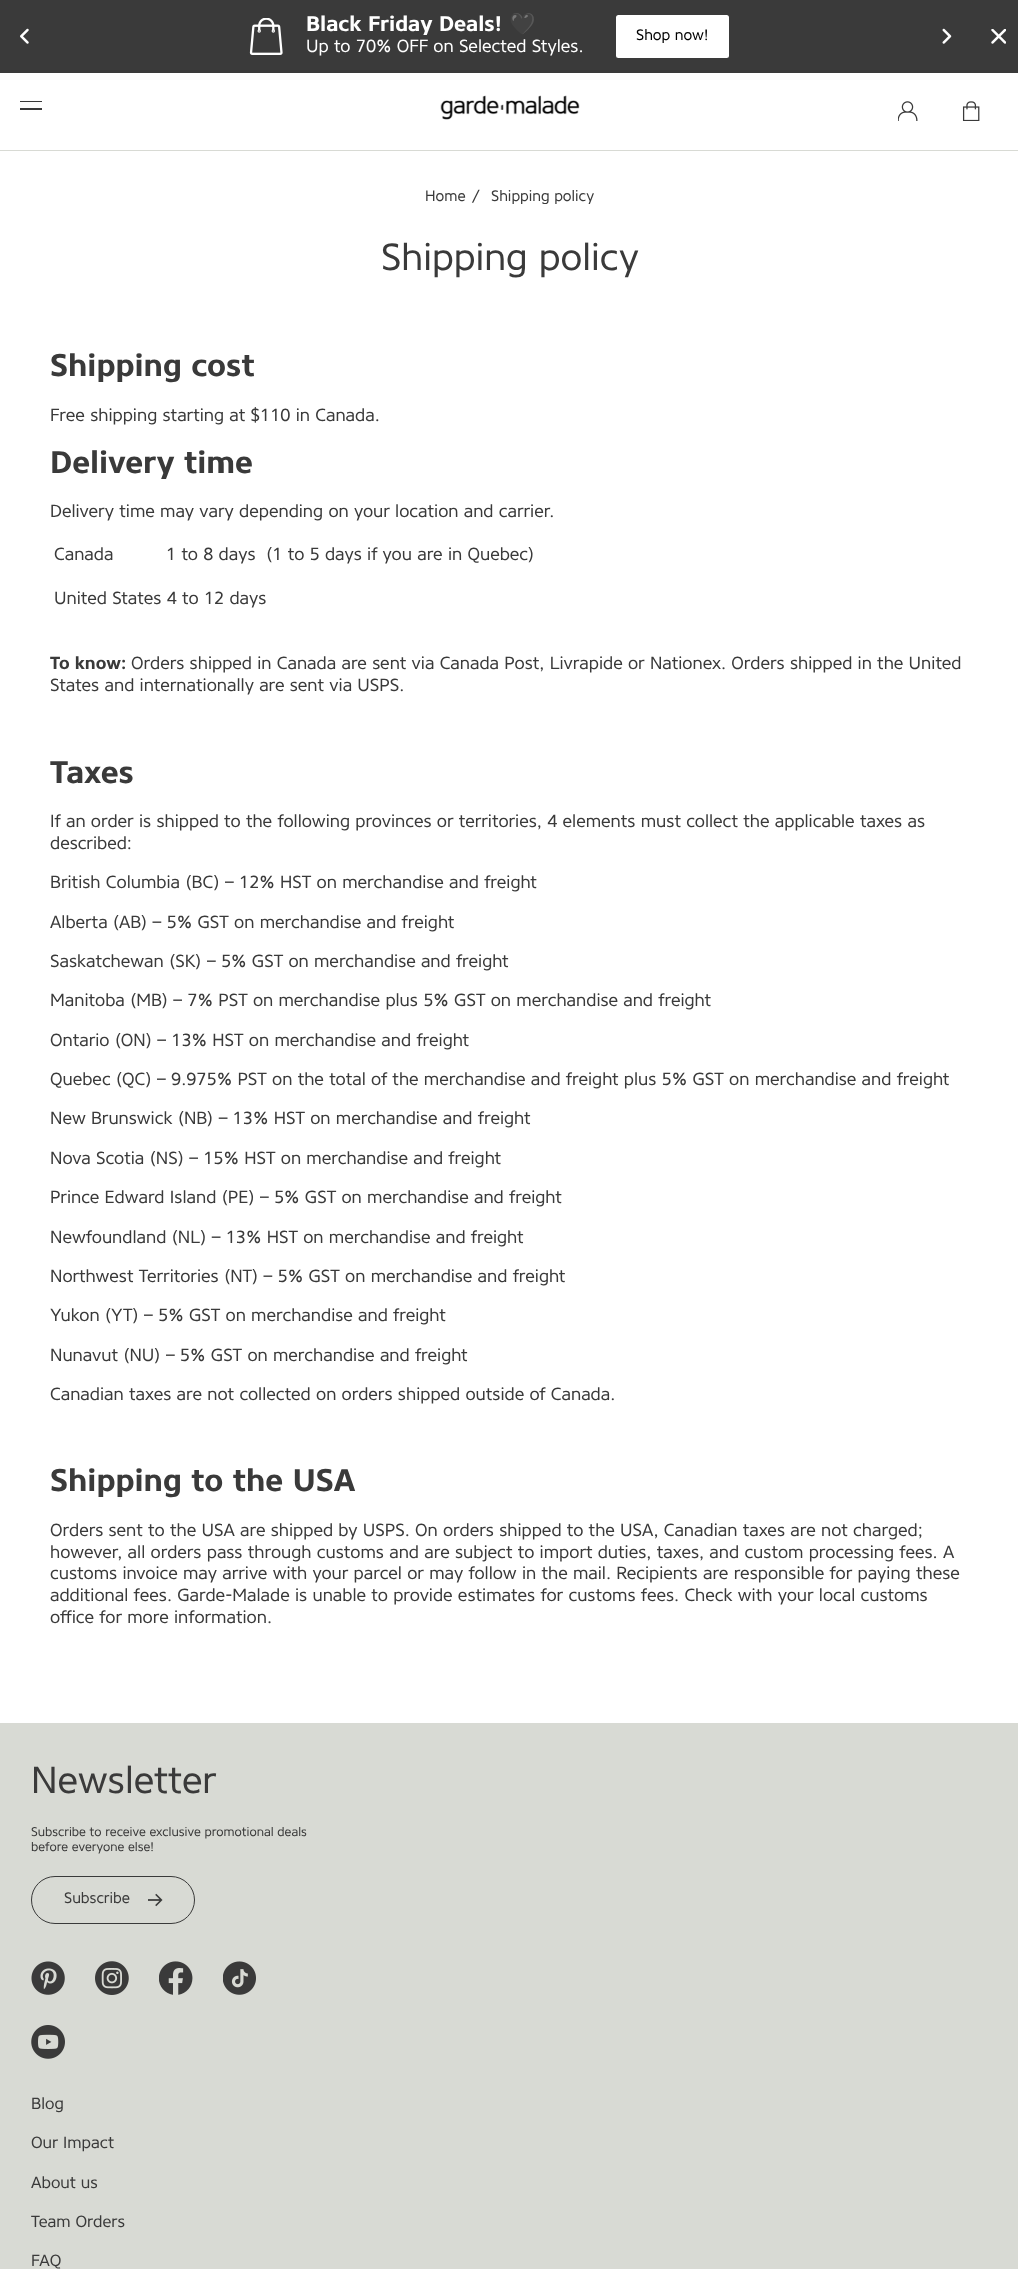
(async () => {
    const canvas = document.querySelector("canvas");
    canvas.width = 1018;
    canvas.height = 2269;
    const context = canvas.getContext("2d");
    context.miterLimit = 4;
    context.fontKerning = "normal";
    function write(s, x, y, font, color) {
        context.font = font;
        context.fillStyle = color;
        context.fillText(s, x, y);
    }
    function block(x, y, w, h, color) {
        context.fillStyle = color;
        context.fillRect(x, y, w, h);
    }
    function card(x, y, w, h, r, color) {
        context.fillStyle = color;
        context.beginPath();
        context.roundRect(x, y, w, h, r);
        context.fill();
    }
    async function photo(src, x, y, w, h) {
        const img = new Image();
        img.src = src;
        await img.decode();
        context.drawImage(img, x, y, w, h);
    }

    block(0, 0, 1018, 2269, "rgb(255, 255, 255)");
    block(0, 0, 1018, 73, "rgb(58, 58, 58)");
    await photo("media/1.png", 249, 18, 34, 37);
    write("Black Friday Deals!", 306, 31, "bold 21.25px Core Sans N", "rgb(255, 255, 255)");
    context.save();
    context.beginPath();
    context.rect(38, 13, 896, 47);
    context.clip();
    write("🖤", 509, 31, "bold 21.25px Noto Color Emoji", "rgb(255, 255, 255)");
    context.restore();
    write("Up to 70% OFF on Selected Styles.", 306, 52, "17.5px Core Sans N", "rgb(255, 255, 255)");
    card(616, 15, 113, 43, 2.5, "rgb(255, 255, 255)");
    write("Shop now!", 636, 40, "15px Core Sans N", "rgb(0, 0, 0)");
    await photo("media/2.png", 20, 28, 9, 16);
    await photo("media/3.png", 942, 28, 10, 16);
    await photo("media/4.png", 991, 29, 15, 15);
    block(0, 150, 1018, 1, "rgb(216, 218, 212)");
    block(20, 101, 22, 1, "rgb(58, 58, 58)");
    block(20, 108, 22, 2, "rgb(58, 58, 58)");
    await photo("media/5.png", 440, 95, 140, 25);
    await photo("media/6.png", 898, 101, 20, 20);
    await photo("media/7.png", 962, 101, 18, 20);
    write("Home", 425, 201, "15px Core Sans N", "rgb(58, 58, 58)");
    write("/", 472, 201, "15px Core Sans N", "rgb(58, 58, 58)");
    write("Shipping policy", 491, 201, "15px Core Sans N", "rgb(58, 58, 58)");
    write("Shipping policy", 381, 270, "37.5px Core Sans N", "rgb(58, 58, 58)");
    write("Shipping cost", 50, 376, "bold 31.25px Core Sans N", "rgb(58, 58, 58)");
    write("Free shipping starting at $110 in Canada.", 50, 421, "17.5px Core Sans N", "rgb(58, 58, 58)");
    write("Delivery time", 50, 473, "bold 31.25px Core Sans N", "rgb(58, 58, 58)");
    write("Delivery time may vary depending on your location and carrier.", 50, 517, "17.5px Core Sans N", "rgb(58, 58, 58)");
    write("Canada", 54, 560, "17.5px Core Sans N", "rgb(58, 58, 58)");
    write("1 to 8 days  (1 to 5 days if you are in Quebec)", 166, 560, "17.5px Core Sans N", "rgb(58, 58, 58)");
    write("United States 4 to 12 days", 54, 604, "17.5px Core Sans N", "rgb(58, 58, 58)");
    write("To know:", 50, 669, "bold 17.5px Core Sans N", "rgb(58, 58, 58)");
    write("Orders shipped in Canada are sent via Canada Post, Livrapide or Nationex. Orders shipped in the United", 131, 669, "17.5px Core Sans N", "rgb(58, 58, 58)");
    write("States and internationally are sent via USPS.", 50, 691, "17.5px Core Sans N", "rgb(58, 58, 58)");
    write("Taxes", 50, 783, "bold 31.25px Core Sans N", "rgb(58, 58, 58)");
    write("If an order is shipped to the following provinces or territories, 4 elements must collect the applicable taxes as", 50, 827, "17.5px Core Sans N", "rgb(58, 58, 58)");
    write("described:", 50, 849, "17.5px Core Sans N", "rgb(58, 58, 58)");
    write("British Columbia (BC) – 12% HST on merchandise and freight", 50, 888, "17.5px Core Sans N", "rgb(58, 58, 58)");
    write("Alberta (AB) – 5% GST on merchandise and freight", 50, 928, "17.5px Core Sans N", "rgb(58, 58, 58)");
    write("Saskatchewan (SK) – 5% GST on merchandise and freight", 50, 967, "17.5px Core Sans N", "rgb(58, 58, 58)");
    write("Manitoba (MB) – 7% PST on merchandise plus 5% GST on merchandise and freight", 50, 1006, "17.5px Core Sans N", "rgb(58, 58, 58)");
    write("Ontario (ON) – 13% HST on merchandise and freight", 50, 1046, "17.5px Core Sans N", "rgb(58, 58, 58)");
    write("Quebec (QC) – 9.975% PST on the total of the merchandise and freight plus 5% GST on merchandise and freight", 50, 1085, "17.5px Core Sans N", "rgb(58, 58, 58)");
    write("New Brunswick (NB) – 13% HST on merchandise and freight", 50, 1124, "17.5px Core Sans N", "rgb(58, 58, 58)");
    write("Nova Scotia (NS) – 15% HST on merchandise and freight", 50, 1164, "17.5px Core Sans N", "rgb(58, 58, 58)");
    write("Prince Edward Island (PE) – 5% GST on merchandise and freight", 50, 1203, "17.5px Core Sans N", "rgb(58, 58, 58)");
    write("Newfoundland (NL) – 13% HST on merchandise and freight", 50, 1243, "17.5px Core Sans N", "rgb(58, 58, 58)");
    write("Northwest Territories (NT) – 5% GST on merchandise and freight", 50, 1282, "17.5px Core Sans N", "rgb(58, 58, 58)");
    write("Yukon (YT) – 5% GST on merchandise and freight", 50, 1321, "17.5px Core Sans N", "rgb(58, 58, 58)");
    write("Nunavut (NU) – 5% GST on merchandise and freight", 50, 1361, "17.5px Core Sans N", "rgb(58, 58, 58)");
    write("Canadian taxes are not collected on orders shipped outside of Canada.", 50, 1400, "17.5px Core Sans N", "rgb(58, 58, 58)");
    write("Shipping to the USA", 50, 1491, "bold 31.25px Core Sans N", "rgb(58, 58, 58)");
    write("Orders sent to the USA are shipped by USPS. On orders shipped to the USA, Canadian taxes are not charged;", 50, 1536, "17.5px Core Sans N", "rgb(58, 58, 58)");
    write("however, all orders pass through customs and are subject to import duties, taxes, and custom processing fees. A", 50, 1558, "17.5px Core Sans N", "rgb(58, 58, 58)");
    write("customs invoice may arrive with your parcel or may follow in the mail. Recipients are responsible for paying these", 50, 1579, "17.5px Core Sans N", "rgb(58, 58, 58)");
    write("additional fees. Garde-Malade is unable to provide estimates for customs fees. Check with your local customs", 50, 1601, "17.5px Core Sans N", "rgb(58, 58, 58)");
    write("office for more information.", 50, 1623, "17.5px Core Sans N", "rgb(58, 58, 58)");
    block(0, 1723, 1018, 546, "rgb(216, 218, 212)");
    write("Newsletter", 31, 1793, "37.5px Core Sans N", "rgb(58, 58, 58)");
    write("Subscribe to receive exclusive promotional deals", 31, 1836, "12.5px Core Sans N", "rgb(58, 58, 58)");
    write("before everyone else!", 31, 1851, "12.5px Core Sans N", "rgb(58, 58, 58)");
    context.beginPath();
    context.roundRect(31.5, 1876.5, 163, 47, 23.5);
    context.strokeStyle = "rgb(58, 58, 58)";
    context.stroke();
    write("Subscribe", 64, 1903, "15px Core Sans N", "rgb(58, 58, 58)");
    await photo("media/8.png", 148, 1893, 15, 14);
    await photo("media/9.png", 31, 1961, 34, 34);
    await photo("media/10.png", 95, 1961, 34, 34);
    await photo("media/11.png", 159, 1961, 34, 34);
    await photo("media/12.png", 223, 1961, 33, 34);
    await photo("media/13.png", 31, 2025, 34, 34);
    write("Blog", 31, 2109, "16.25px Core Sans N", "rgb(58, 58, 58)");
    write("Our Impact", 31, 2148, "16.25px Core Sans N", "rgb(58, 58, 58)");
    write("About us", 31, 2188, "16.25px Core Sans N", "rgb(58, 58, 58)");
    write("Team Orders", 31, 2227, "16.25px Core Sans N", "rgb(58, 58, 58)");
    write("FAQ", 31, 2266, "16.25px Core Sans N", "rgb(58, 58, 58)");
})();
